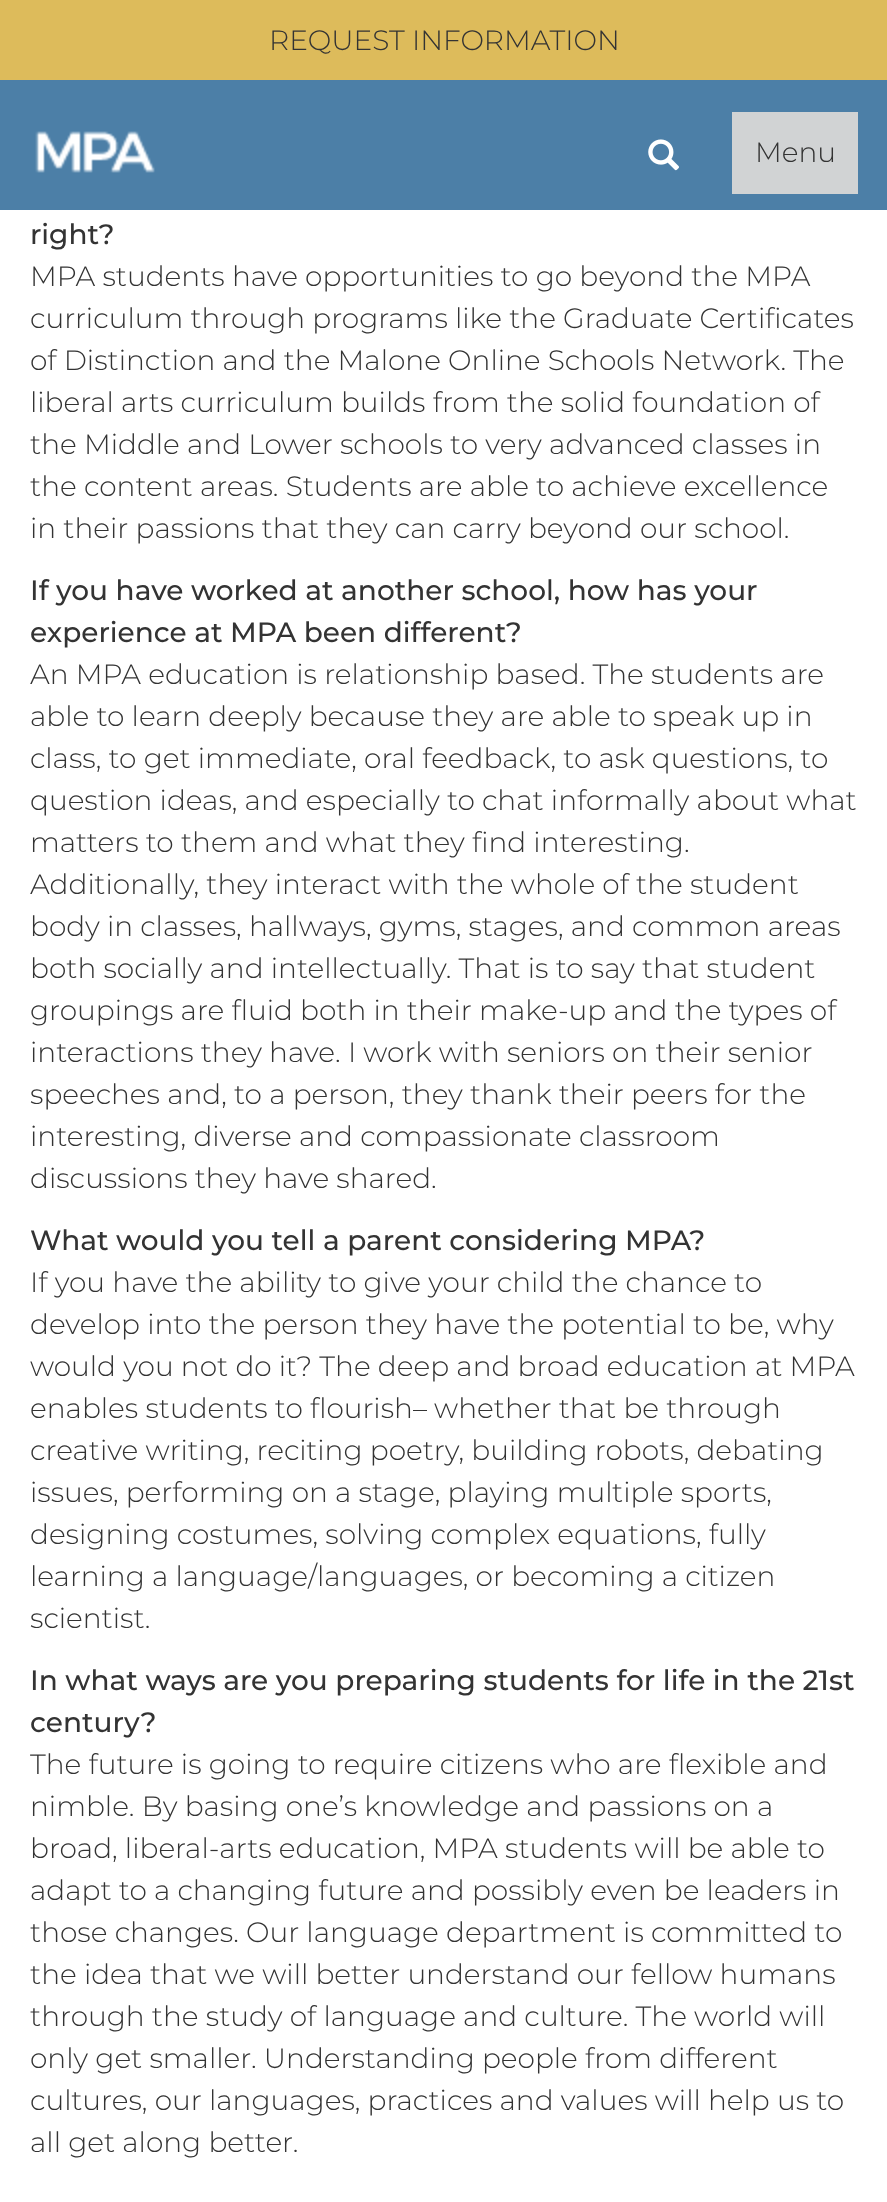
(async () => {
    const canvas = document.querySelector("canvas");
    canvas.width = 887;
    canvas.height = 2202;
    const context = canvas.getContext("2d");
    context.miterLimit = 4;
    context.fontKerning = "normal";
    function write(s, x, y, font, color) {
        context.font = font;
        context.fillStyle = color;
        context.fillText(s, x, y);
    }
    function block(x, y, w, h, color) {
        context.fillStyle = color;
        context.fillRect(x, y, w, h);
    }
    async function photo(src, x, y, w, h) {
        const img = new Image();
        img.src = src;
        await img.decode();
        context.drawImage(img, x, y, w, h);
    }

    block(0, 0, 887, 2202, "rgb(255, 255, 255)");
    block(0, 80, 887, 130, "rgb(76, 127, 167)");
    block(0, 0, 887, 80, "rgb(221, 187, 91)");
    write("REQUEST INFORMATION", 269, 50, "300 28px Montserrat", "rgb(51, 51, 51)");
    await photo("media/1.png", 35, 131, 120, 42);
    await photo("media/2.png", 648, 139, 31, 32);
    block(732, 112, 126, 82, "rgb(209, 211, 212)");
    write("Menu", 755, 162, "300 28px Montserrat", "rgb(51, 51, 51)");
    write("right?", 30, 244, "500 28px Montserrat", "rgb(51, 51, 51)");
    write("MPA students have opportunities to go beyond the MPA", 30, 286, "300 28px Montserrat", "rgb(51, 51, 51)");
    write("curriculum through programs like the Graduate Certificates", 30, 328, "300 28px Montserrat", "rgb(51, 51, 51)");
    write("of Distinction and the Malone Online Schools Network. The", 30, 370, "300 28px Montserrat", "rgb(51, 51, 51)");
    write("liberal arts curriculum builds from the solid foundation of", 30, 412, "300 28px Montserrat", "rgb(51, 51, 51)");
    write("the Middle and Lower schools to very advanced classes in", 30, 454, "300 28px Montserrat", "rgb(51, 51, 51)");
    write("the content areas. Students are able to achieve excellence", 30, 496, "300 28px Montserrat", "rgb(51, 51, 51)");
    write("in their passions that they can carry beyond our school.", 30, 538, "300 28px Montserrat", "rgb(51, 51, 51)");
    write("If you have worked at another school, how has your", 30, 600, "500 28px Montserrat", "rgb(51, 51, 51)");
    write("experience at MPA been different?", 30, 642, "500 28px Montserrat", "rgb(51, 51, 51)");
    write("An MPA education is relationship based. The students are", 30, 684, "300 28px Montserrat", "rgb(51, 51, 51)");
    write("able to learn deeply because they are able to speak up in", 30, 726, "300 28px Montserrat", "rgb(51, 51, 51)");
    write("class, to get immediate, oral feedback, to ask questions, to", 30, 768, "300 28px Montserrat", "rgb(51, 51, 51)");
    write("question ideas, and especially to chat informally about what", 30, 810, "300 28px Montserrat", "rgb(51, 51, 51)");
    write("matters to them and what they find interesting.", 30, 852, "300 28px Montserrat", "rgb(51, 51, 51)");
    write("Additionally, they interact with the whole of the student", 30, 894, "300 28px Montserrat", "rgb(51, 51, 51)");
    write("body in classes, hallways, gyms, stages, and common areas", 30, 936, "300 28px Montserrat", "rgb(51, 51, 51)");
    write("both socially and intellectually. That is to say that student", 30, 978, "300 28px Montserrat", "rgb(51, 51, 51)");
    write("groupings are fluid both in their make-up and the types of", 30, 1020, "300 28px Montserrat", "rgb(51, 51, 51)");
    write("interactions they have. I work with seniors on their senior", 30, 1062, "300 28px Montserrat", "rgb(51, 51, 51)");
    write("speeches and, to a person, they thank their peers for the", 30, 1104, "300 28px Montserrat", "rgb(51, 51, 51)");
    write("interesting, diverse and compassionate classroom", 30, 1146, "300 28px Montserrat", "rgb(51, 51, 51)");
    write("discussions they have shared.", 30, 1188, "300 28px Montserrat", "rgb(51, 51, 51)");
    write("What would you tell a parent considering MPA?", 30, 1250, "500 28px Montserrat", "rgb(51, 51, 51)");
    write("If you have the ability to give your child the chance to", 30, 1292, "300 28px Montserrat", "rgb(51, 51, 51)");
    write("develop into the person they have the potential to be, why", 30, 1334, "300 28px Montserrat", "rgb(51, 51, 51)");
    write("would you not do it? The deep and broad education at MPA", 30, 1376, "300 28px Montserrat", "rgb(51, 51, 51)");
    write("enables students to flourish– whether that be through", 30, 1418, "300 28px Montserrat", "rgb(51, 51, 51)");
    write("creative writing, reciting poetry, building robots, debating", 30, 1460, "300 28px Montserrat", "rgb(51, 51, 51)");
    write("issues, performing on a stage, playing multiple sports,", 30, 1502, "300 28px Montserrat", "rgb(51, 51, 51)");
    write("designing costumes, solving complex equations, fully", 30, 1544, "300 28px Montserrat", "rgb(51, 51, 51)");
    write("learning a language/languages, or becoming a citizen", 30, 1586, "300 28px Montserrat", "rgb(51, 51, 51)");
    write("scientist.", 30, 1628, "300 28px Montserrat", "rgb(51, 51, 51)");
    write("In what ways are you preparing students for life in the 21st", 30, 1690, "500 28px Montserrat", "rgb(51, 51, 51)");
    write("century?", 30, 1732, "500 28px Montserrat", "rgb(51, 51, 51)");
    write("The future is going to require citizens who are flexible and", 30, 1774, "300 28px Montserrat", "rgb(51, 51, 51)");
    write("nimble. By basing one’s knowledge and passions on a", 30, 1816, "300 28px Montserrat", "rgb(51, 51, 51)");
    write("broad, liberal-arts education, MPA students will be able to", 30, 1858, "300 28px Montserrat", "rgb(51, 51, 51)");
    write("adapt to a changing future and possibly even be leaders in", 30, 1900, "300 28px Montserrat", "rgb(51, 51, 51)");
    write("those changes. Our language department is committed to", 30, 1942, "300 28px Montserrat", "rgb(51, 51, 51)");
    write("the idea that we will better understand our fellow humans", 30, 1984, "300 28px Montserrat", "rgb(51, 51, 51)");
    write("through the study of language and culture. The world will", 30, 2026, "300 28px Montserrat", "rgb(51, 51, 51)");
    write("only get smaller. Understanding people from different", 30, 2068, "300 28px Montserrat", "rgb(51, 51, 51)");
    write("cultures, our languages, practices and values will help us to", 30, 2110, "300 28px Montserrat", "rgb(51, 51, 51)");
    write("all get along better.", 30, 2152, "300 28px Montserrat", "rgb(51, 51, 51)");
})();
